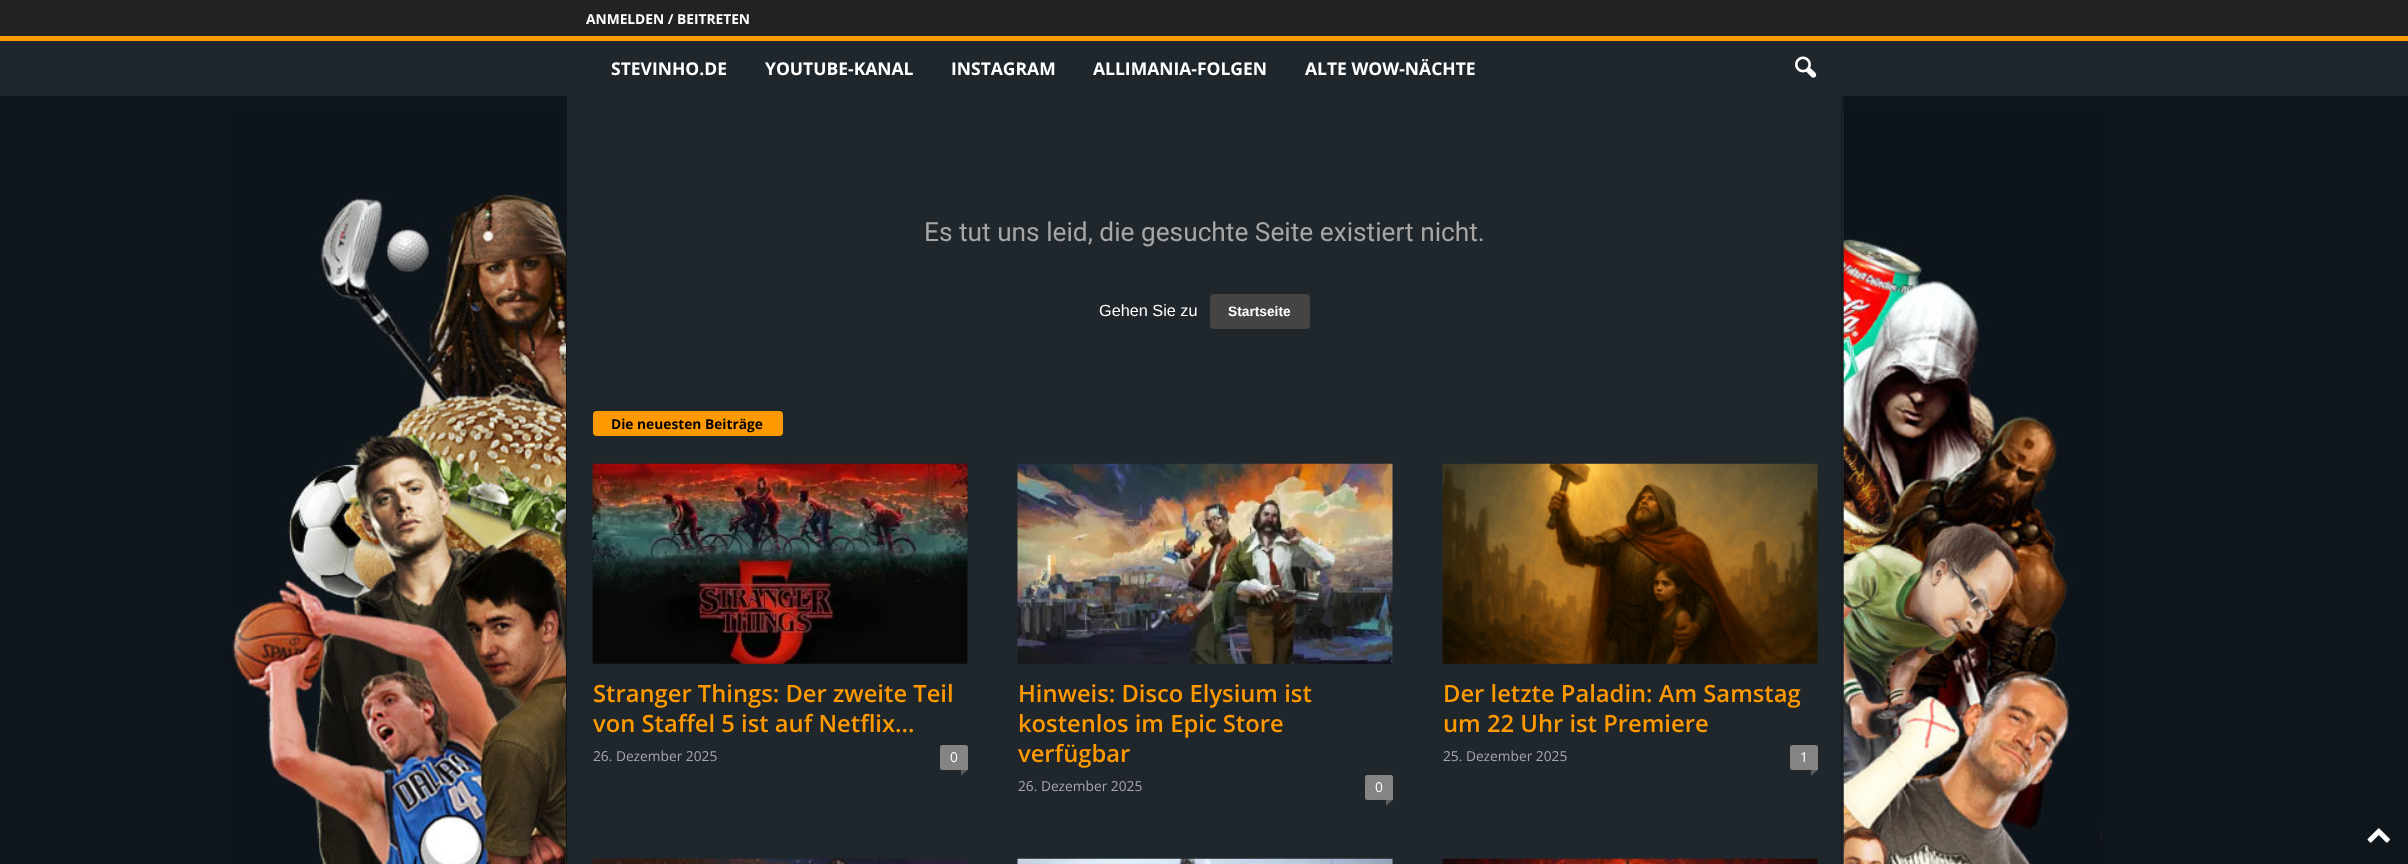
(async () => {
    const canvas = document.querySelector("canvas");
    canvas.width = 2408;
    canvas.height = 864;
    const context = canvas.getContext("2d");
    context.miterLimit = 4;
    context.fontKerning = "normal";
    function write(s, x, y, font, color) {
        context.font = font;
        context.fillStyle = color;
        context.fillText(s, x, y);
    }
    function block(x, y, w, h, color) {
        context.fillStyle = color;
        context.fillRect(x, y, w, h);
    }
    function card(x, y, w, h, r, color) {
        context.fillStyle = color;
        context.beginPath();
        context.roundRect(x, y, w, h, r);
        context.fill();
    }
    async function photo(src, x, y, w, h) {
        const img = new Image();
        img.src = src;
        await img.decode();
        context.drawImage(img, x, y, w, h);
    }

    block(0, 0, 2408, 864, "rgb(14, 21, 27)");
    await photo("media/1.png", 225, 112, 1879, 752);
    block(0, 0, 2408, 36, "rgb(34, 34, 34)");
    write("ANMELDEN / BEITRETEN", 586, 24, "bold 13.75px Open Sans", "rgb(255, 255, 255)");
    block(0, 41, 2408, 55, "rgb(31, 38, 44)");
    block(0, 36, 2408, 5, "rgb(255, 153, 0)");
    write("STEVINHO.DE", 611, 75, "bold 17.5px Open Sans", "rgb(255, 255, 255)");
    write("YOUTUBE-KANAL", 765, 75, "bold 17.5px Open Sans", "rgb(255, 255, 255)");
    write("INSTAGRAM", 951, 75, "bold 17.5px Open Sans", "rgb(255, 255, 255)");
    write("ALLIMANIA-FOLGEN", 1093, 75, "bold 17.5px Open Sans", "rgb(255, 255, 255)");
    write("ALTE WOW-NÄCHTE", 1305, 75, "bold 17.5px Open Sans", "rgb(255, 255, 255)");
    await photo("media/2.png", 1795, 56, 22, 22);
    block(1842, 96, 1, 751, "rgb(31, 38, 44)");
    block(567, 96, 1274, 768, "rgb(31, 38, 44)");
    block(566, 96, 1, 768, "rgb(17, 20, 25)");
    write("Es tut uns leid, die gesuchte Seite existiert nicht.", 924, 241, "26.25px Roboto", "rgb(166, 166, 166)");
    write("Gehen Sie zu", 1099, 316, "16.25px Liberation Sans", "rgb(255, 255, 255)");
    card(1210, 294, 100, 35, 4, "rgb(68, 68, 68)");
    write("Startseite", 1228, 316, "bold 13.75px Liberation Sans", "rgb(255, 255, 255)");
    card(593, 411, 190, 25, 4, "rgb(255, 153, 0)");
    write("Die neuesten Beiträge", 611, 429, "bold 13.75px Open Sans", "rgb(0, 0, 0)");
    await photo("media/3.png", 592, 463, 376, 201);
    write("Stranger Things: Der zweite Teil", 593, 702, "600 23.75px Open Sans", "rgb(255, 153, 0)");
    write("von Staffel 5 ist auf Netflix...", 593, 732, "600 23.75px Open Sans", "rgb(255, 153, 0)");
    write("26. Dezember 2025", 593, 761, "13.75px Open Sans", "rgb(167, 166, 172)");
    context.fillStyle = "rgb(132, 132, 132)";
    context.beginPath();
    context.roundRect(940, 745, 28, 25, [2.5, 2.5, 0, 2.5]);
    context.fill();
    write("0", 950, 762, "13.75px Open Sans", "rgb(255, 255, 255)");
    context.fillStyle = "rgb(91, 91, 91)";
    context.beginPath();
    context.moveTo(961, 770);
    context.lineTo(967.5, 770);
    context.lineTo(961, 776);
    context.closePath();
    context.fill();
    await photo("media/4.png", 1017, 463, 376, 201);
    write("Hinweis: Disco Elysium ist", 1018, 702, "600 23.75px Open Sans", "rgb(255, 153, 0)");
    write("kostenlos im Epic Store", 1018, 732, "600 23.75px Open Sans", "rgb(255, 153, 0)");
    write("verfügbar", 1018, 762, "600 23.75px Open Sans", "rgb(255, 153, 0)");
    write("26. Dezember 2025", 1018, 791, "13.75px Open Sans", "rgb(167, 166, 172)");
    context.fillStyle = "rgb(132, 132, 132)";
    context.beginPath();
    context.roundRect(1365, 775, 28, 25, [2.5, 2.5, 0, 2.5]);
    context.fill();
    write("0", 1375, 792, "13.75px Open Sans", "rgb(255, 255, 255)");
    context.fillStyle = "rgb(91, 91, 91)";
    context.beginPath();
    context.moveTo(1386, 800);
    context.lineTo(1392.5, 800);
    context.lineTo(1386, 806);
    context.closePath();
    context.fill();
    await photo("media/5.png", 1442, 463, 376, 201);
    write("Der letzte Paladin: Am Samstag", 1443, 702, "600 23.75px Open Sans", "rgb(255, 153, 0)");
    write("um 22 Uhr ist Premiere", 1443, 732, "600 23.75px Open Sans", "rgb(255, 153, 0)");
    write("25. Dezember 2025", 1443, 761, "13.75px Open Sans", "rgb(167, 166, 172)");
    context.fillStyle = "rgb(132, 132, 132)";
    context.beginPath();
    context.roundRect(1790, 745, 28, 25, [2.5, 2.5, 0, 2.5]);
    context.fill();
    write("1", 1800, 762, "13.75px Open Sans", "rgb(255, 255, 255)");
    context.fillStyle = "rgb(91, 91, 91)";
    context.beginPath();
    context.moveTo(1811, 770);
    context.lineTo(1817.5, 770);
    context.lineTo(1811, 776);
    context.closePath();
    context.fill();
    await photo("media/6.png", 592, 858, 376, 6);
    await photo("media/7.png", 1017, 858, 376, 6);
    await photo("media/8.png", 1442, 858, 376, 6);
    block(1841, 96, 1, 768, "rgb(19, 26, 32)");
    await photo("media/9.png", 2367, 828, 23, 15);
})();
